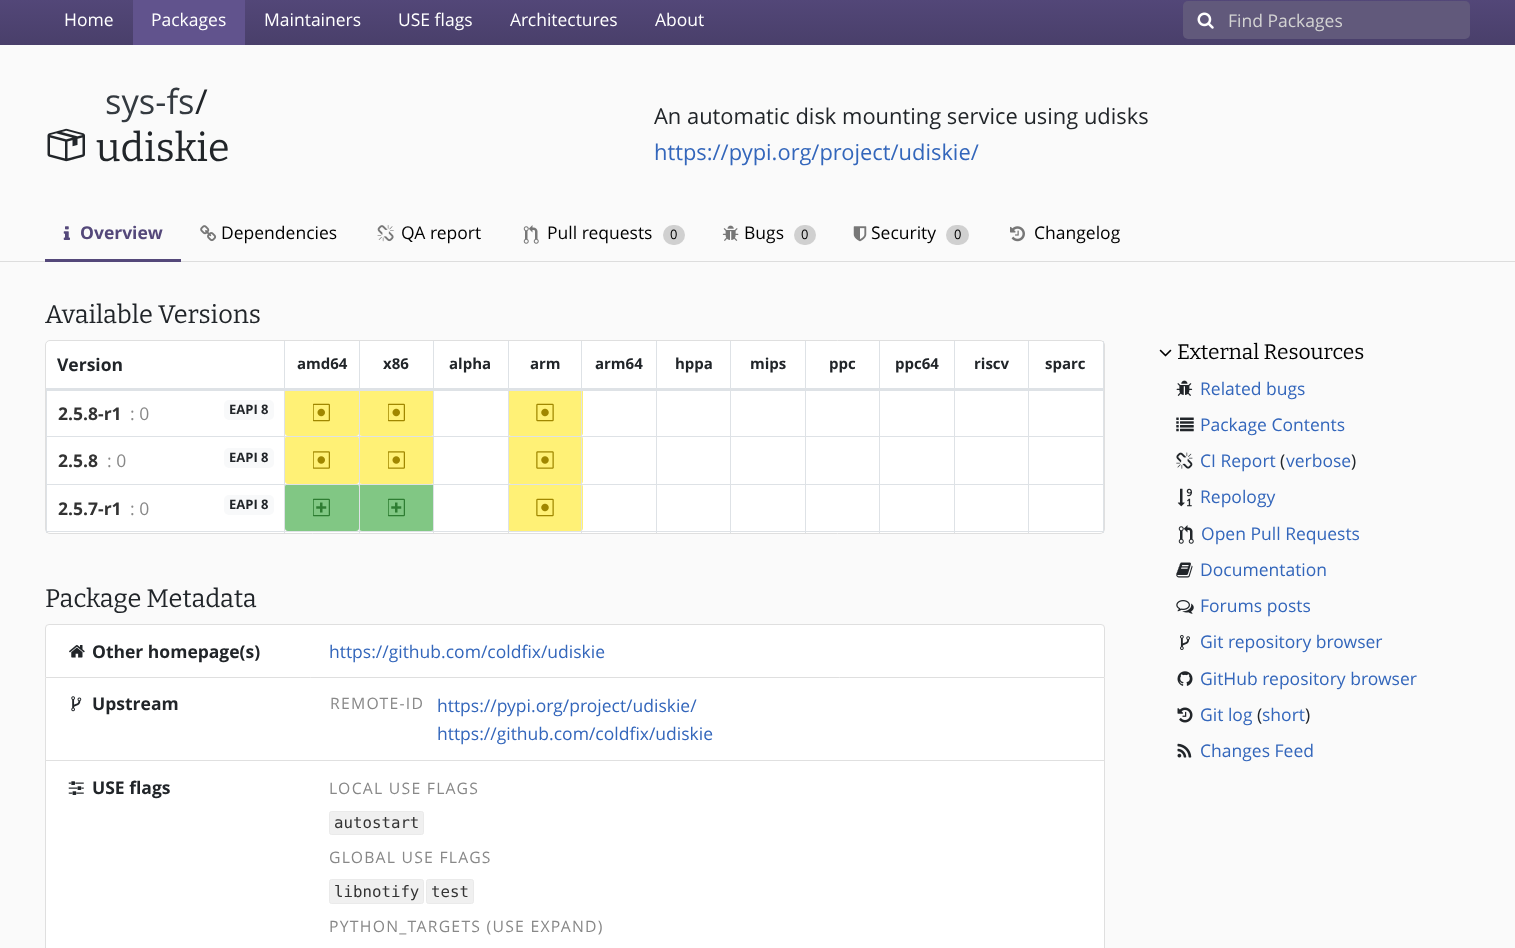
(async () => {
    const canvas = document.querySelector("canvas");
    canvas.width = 1515;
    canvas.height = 948;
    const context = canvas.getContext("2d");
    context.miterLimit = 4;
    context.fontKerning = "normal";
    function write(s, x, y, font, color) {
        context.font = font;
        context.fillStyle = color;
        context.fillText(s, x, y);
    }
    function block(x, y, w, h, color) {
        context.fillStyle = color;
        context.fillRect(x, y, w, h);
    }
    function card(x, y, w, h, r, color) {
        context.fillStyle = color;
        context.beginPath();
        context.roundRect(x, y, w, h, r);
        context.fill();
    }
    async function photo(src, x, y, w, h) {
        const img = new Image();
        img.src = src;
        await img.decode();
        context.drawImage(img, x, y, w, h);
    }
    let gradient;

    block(0, 0, 1515, 948, "rgb(250, 250, 250)");
    gradient = context.createLinearGradient(758, -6.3, 758, 45);
    gradient.addColorStop(0, "rgb(84, 72, 122)");
    gradient.addColorStop(1, "rgb(73, 63, 106)");
    context.fillStyle = gradient;
    context.fillRect(0, 0, 1515, 45);
    write("Home", 64, 26, "17.5px Open Sans", "rgb(255, 255, 255)");
    block(133, 0, 112, 45, "rgb(97, 83, 141)");
    write("Packages", 151, 26, "17.5px Open Sans", "rgb(255, 255, 255)");
    write("Maintainers", 264, 26, "17.5px Open Sans", "rgb(255, 255, 255)");
    write("USE flags", 398, 26, "17.5px Open Sans", "rgb(255, 255, 255)");
    write("Architectures", 510, 26, "17.5px Open Sans", "rgb(255, 255, 255)");
    write("About", 655, 26, "17.5px Open Sans", "rgb(255, 255, 255)");
    context.fillStyle = "rgb(97, 89, 123)";
    context.beginPath();
    context.roundRect(1183, 1, 46, 38, [5, 0, 0, 5]);
    context.fill();
    await photo("media/1.png", 1197, 12, 17, 17);
    context.beginPath();
    context.roundRect(1228, 1, 242, 38, [0, 5, 5, 0]);
    context.fill();
    write("Find Packages", 1228, 27, "17.5px Open Sans", "rgb(211, 211, 211)");
    write("sys-fs", 105, 114, "34.5px Open Sans", "rgb(52, 58, 64)");
    write("/", 195, 114, "34.5px Open Sans", "rgb(33, 37, 41)");
    await photo("media/2.png", 47, 128, 38, 34);
    write("udiskie", 96, 161, "39.5px Bitter", "rgb(33, 37, 41)");
    write("An automatic disk mounting service using udisks", 654, 124, "21.9px Open Sans", "rgb(33, 37, 41)");
    write("https://pypi.org/project/udiskie/", 654, 160, "21.9px Open Sans", "rgb(51, 102, 187)");
    block(0, 261, 1515, 1, "rgb(221, 221, 221)");
    block(45, 259, 136, 3, "rgb(84, 72, 122)");
    await photo("media/3.png", 63, 226, 7, 14);
    write("Overview", 80, 239, "bold 17.5px Open Sans", "rgb(84, 72, 122)");
    await photo("media/4.png", 200, 225, 17, 17);
    write("Dependencies", 221, 239, "17.5px Open Sans", "rgb(0, 0, 0)");
    await photo("media/5.png", 377, 225, 17, 17);
    write("QA report", 401, 239, "17.5px Open Sans", "rgb(0, 0, 0)");
    await photo("media/6.png", 523, 225, 16, 19);
    write("Pull requests", 547, 239, "17.5px Open Sans", "rgb(0, 0, 0)");
    card(663, 225, 22, 20, 10, "rgb(208, 208, 208)");
    write("0", 670, 239, "13px Open Sans", "rgb(0, 0, 0)");
    await photo("media/7.png", 722, 225, 17, 16);
    write("Bugs", 744, 239, "17.5px Open Sans", "rgb(0, 0, 0)");
    card(794, 225, 22, 20, 10, "rgb(208, 208, 208)");
    write("0", 801, 239, "13px Open Sans", "rgb(0, 0, 0)");
    await photo("media/8.png", 853, 226, 14, 16);
    write("Security", 871, 239, "17.5px Open Sans", "rgb(0, 0, 0)");
    card(946, 225, 23, 20, 10, "rgb(208, 208, 208)");
    write("0", 954, 239, "13px Open Sans", "rgb(0, 0, 0)");
    await photo("media/9.png", 1010, 226, 15, 16);
    write("Changelog", 1034, 239, "17.5px Open Sans", "rgb(0, 0, 0)");
    write("Available Versions", 45, 323, "25.4px Bitter", "rgb(33, 37, 41)");
    context.fillStyle = "rgb(255, 255, 255)";
    context.beginPath();
    context.roundRect(45.5, 340.5, 1059, 193, 4.5);
    context.fill();
    context.strokeStyle = "rgb(223, 223, 223)";
    context.stroke();
    write("Version", 57, 371, "bold 17.5px Open Sans", "rgb(33, 37, 41)");
    write("amd64", 297, 369, "bold 15px Open Sans", "rgb(33, 37, 41)");
    write("x86", 383, 369, "bold 15px Open Sans", "rgb(33, 37, 41)");
    write("alpha", 449, 369, "bold 15px Open Sans", "rgb(33, 37, 41)");
    write("arm", 530, 369, "bold 15px Open Sans", "rgb(33, 37, 41)");
    write("arm64", 595, 369, "bold 15px Open Sans", "rgb(33, 37, 41)");
    write("hppa", 675, 369, "bold 15px Open Sans", "rgb(33, 37, 41)");
    write("mips", 750, 369, "bold 15px Open Sans", "rgb(33, 37, 41)");
    write("ppc", 829, 369, "bold 15px Open Sans", "rgb(33, 37, 41)");
    write("ppc64", 895, 369, "bold 15px Open Sans", "rgb(33, 37, 41)");
    write("riscv", 974, 369, "bold 15px Open Sans", "rgb(33, 37, 41)");
    card(285, 389, 74, 47, 3, "rgb(255, 241, 118)");
    card(285, 436, 74, 48, 3, "rgb(255, 241, 118)");
    card(359, 436, 75, 48, 3, "rgb(255, 241, 118)");
    card(508, 436, 75, 48, 3, "rgb(255, 241, 118)");
    block(1028, 436, 76, 1, "rgb(222, 226, 230)");
    block(1028, 484, 76, 1, "rgb(222, 226, 230)");
    block(1103, 484, 1, 49, "rgb(222, 226, 230)");
    block(1028, 531, 76, 1, "rgb(222, 226, 230)");
    block(1028, 484, 1, 49, "rgb(222, 226, 230)");
    block(954, 484, 75, 1, "rgb(222, 226, 230)");
    block(1028, 436, 1, 49, "rgb(222, 226, 230)");
    block(954, 436, 75, 1, "rgb(222, 226, 230)");
    block(954, 531, 75, 1, "rgb(222, 226, 230)");
    block(954, 484, 1, 49, "rgb(222, 226, 230)");
    block(879, 484, 76, 1, "rgb(222, 226, 230)");
    block(954, 436, 1, 49, "rgb(222, 226, 230)");
    block(879, 436, 76, 1, "rgb(222, 226, 230)");
    block(879, 531, 76, 1, "rgb(222, 226, 230)");
    block(879, 484, 1, 49, "rgb(222, 226, 230)");
    block(805, 484, 75, 1, "rgb(222, 226, 230)");
    block(879, 436, 1, 49, "rgb(222, 226, 230)");
    block(805, 436, 75, 1, "rgb(222, 226, 230)");
    block(805, 531, 75, 1, "rgb(222, 226, 230)");
    block(805, 484, 1, 49, "rgb(222, 226, 230)");
    block(730, 484, 76, 1, "rgb(222, 226, 230)");
    block(805, 436, 1, 49, "rgb(222, 226, 230)");
    block(730, 436, 76, 1, "rgb(222, 226, 230)");
    block(730, 531, 76, 1, "rgb(222, 226, 230)");
    block(730, 484, 1, 49, "rgb(222, 226, 230)");
    block(656, 484, 75, 1, "rgb(222, 226, 230)");
    block(730, 436, 1, 49, "rgb(222, 226, 230)");
    block(656, 436, 75, 1, "rgb(222, 226, 230)");
    card(508, 484, 75, 47, 3, "rgb(255, 241, 118)");
    block(656, 531, 75, 1, "rgb(222, 226, 230)");
    block(656, 484, 1, 49, "rgb(222, 226, 230)");
    block(581, 484, 77, 1, "rgb(222, 226, 230)");
    block(656, 436, 1, 49, "rgb(222, 226, 230)");
    block(581, 436, 77, 1, "rgb(222, 226, 230)");
    block(581, 531, 77, 1, "rgb(222, 226, 230)");
    block(581, 484, 1, 49, "rgb(222, 226, 230)");
    block(508, 484, 75, 1, "rgb(222, 226, 230)");
    block(581, 436, 1, 49, "rgb(222, 226, 230)");
    block(508, 436, 75, 1, "rgb(222, 226, 230)");
    card(359, 484, 75, 47, 3, "rgb(129, 199, 132)");
    block(508, 531, 75, 1, "rgb(222, 226, 230)");
    block(508, 484, 1, 49, "rgb(222, 226, 230)");
    block(433, 484, 76, 1, "rgb(222, 226, 230)");
    block(508, 436, 1, 49, "rgb(222, 226, 230)");
    block(433, 436, 76, 1, "rgb(222, 226, 230)");
    block(433, 531, 76, 1, "rgb(222, 226, 230)");
    block(433, 484, 1, 49, "rgb(222, 226, 230)");
    block(359, 484, 75, 1, "rgb(222, 226, 230)");
    block(433, 436, 1, 49, "rgb(222, 226, 230)");
    block(359, 436, 75, 1, "rgb(222, 226, 230)");
    card(285, 484, 74, 47, 3, "rgb(129, 199, 132)");
    block(359, 531, 75, 1, "rgb(222, 226, 230)");
    block(359, 484, 1, 49, "rgb(222, 226, 230)");
    block(284, 484, 76, 1, "rgb(222, 226, 230)");
    block(359, 436, 1, 49, "rgb(222, 226, 230)");
    block(284, 436, 76, 1, "rgb(222, 226, 230)");
    block(284, 531, 76, 1, "rgb(222, 226, 230)");
    block(284, 484, 1, 49, "rgb(222, 226, 230)");
    block(46, 484, 239, 1, "rgb(222, 226, 230)");
    block(284, 436, 1, 49, "rgb(222, 226, 230)");
    block(46, 436, 239, 1, "rgb(222, 226, 230)");
    block(284, 341, 1, 97, "rgb(222, 226, 230)");
    card(359, 389, 75, 47, 3, "rgb(255, 241, 118)");
    block(359, 341, 1, 97, "rgb(222, 226, 230)");
    block(433, 341, 1, 97, "rgb(222, 226, 230)");
    card(508, 389, 75, 47, 3, "rgb(255, 241, 118)");
    block(508, 341, 1, 97, "rgb(222, 226, 230)");
    block(581, 341, 1, 97, "rgb(222, 226, 230)");
    block(656, 341, 1, 97, "rgb(222, 226, 230)");
    block(730, 341, 1, 97, "rgb(222, 226, 230)");
    block(805, 341, 1, 97, "rgb(222, 226, 230)");
    block(879, 341, 1, 97, "rgb(222, 226, 230)");
    block(954, 341, 1, 97, "rgb(222, 226, 230)");
    block(1028, 341, 1, 97, "rgb(222, 226, 230)");
    block(46, 531, 239, 1, "rgb(222, 226, 230)");
    block(46, 484, 1, 49, "rgb(222, 226, 230)");
    block(46, 388, 1, 97, "rgb(222, 226, 230)");
    block(1103, 341, 1, 144, "rgb(222, 226, 230)");
    block(46, 388, 1058, 3, "rgb(222, 226, 230)");
    write("sparc", 1045, 369, "bold 15px Open Sans", "rgb(33, 37, 41)");
    await photo("media/10.png", 313, 403, 17, 19);
    await photo("media/10.png", 388, 403, 17, 19);
    await photo("media/11.png", 536, 403, 18, 19);
    write("2.5.8-r1", 58, 420, "bold 17.5px Open Sans", "rgb(51, 51, 51)");
    write(": 0", 130, 420, "17.5px Open Sans", "rgb(136, 136, 136)");
    card(224, 400, 50, 20, 5, "rgb(248, 249, 250)");
    write("EAPI 8", 229, 414, "bold 13px Open Sans", "rgb(33, 37, 41)");
    write("2.5.8", 58, 467, "bold 17.5px Open Sans", "rgb(51, 51, 51)");
    write(": 0", 107, 467, "17.5px Open Sans", "rgb(136, 136, 136)");
    card(224, 448, 50, 20, 5, "rgb(248, 249, 250)");
    write("EAPI 8", 229, 462, "bold 13px Open Sans", "rgb(33, 37, 41)");
    await photo("media/12.png", 313, 451, 17, 18);
    await photo("media/12.png", 388, 451, 17, 18);
    await photo("media/13.png", 536, 451, 18, 18);
    write("2.5.7-r1", 58, 515, "bold 17.5px Open Sans", "rgb(51, 51, 51)");
    write(": 0", 130, 515, "17.5px Open Sans", "rgb(136, 136, 136)");
    card(224, 495, 50, 20, 5, "rgb(248, 249, 250)");
    write("EAPI 8", 229, 509, "bold 13px Open Sans", "rgb(33, 37, 41)");
    await photo("media/14.png", 313, 498, 17, 19);
    await photo("media/14.png", 388, 498, 17, 19);
    await photo("media/11.png", 536, 498, 18, 19);
    write("Package Metadata", 45, 607, "25.4px Bitter", "rgb(33, 37, 41)");
    card(45, 624, 1060, 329, 5, "rgb(255, 255, 255)");
    context.beginPath();
    context.roundRect(45.5, 624.5, 1059, 53, [3.5, 3.5, 0, 0]);
    context.stroke();
    await photo("media/15.png", 69, 645, 16, 13);
    write("Other homepage(s)", 92, 658, "bold 17.5px Open Sans", "rgb(33, 37, 41)");
    write("https://github.com/coldfix/udiskie", 329, 658, "17.5px Open Sans", "rgb(51, 102, 187)");
    context.fillStyle = "rgb(223, 223, 223)";
    context.beginPath();
    context.moveTo(1105, 678);
    context.lineTo(1105, 761);
    context.lineTo(1104, 760);
    context.lineTo(1104, 678);
    context.closePath();
    context.fill();
    context.fillStyle = "rgba(0, 0, 0, 0.12)";
    context.beginPath();
    context.moveTo(1105, 761);
    context.lineTo(45, 761);
    context.lineTo(46, 760);
    context.lineTo(1104, 760);
    context.closePath();
    context.fill();
    context.beginPath();
    context.moveTo(45, 761);
    context.lineTo(45, 678);
    context.lineTo(46, 678);
    context.lineTo(46, 760);
    context.closePath();
    context.fill();
    await photo("media/16.png", 71, 696, 11, 16);
    write("Upstream", 92, 710, "bold 17.5px Open Sans", "rgb(33, 37, 41)");
    context.letterSpacing = "1.25px";
    write("REMOTE-ID", 330, 709, "15.75px Open Sans", "rgb(136, 136, 136)");
    context.letterSpacing = "0px";
    write("https://pypi.org/project/udiskie/", 437, 712, "17.5px Open Sans", "rgb(51, 102, 187)");
    write("https://github.com/coldfix/udiskie", 437, 740, "17.5px Open Sans", "rgb(51, 102, 187)");
    context.fillStyle = "rgb(223, 223, 223)";
    context.beginPath();
    context.moveTo(1105, 761);
    context.lineTo(1105, 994);
    context.lineTo(1104, 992);
    context.lineTo(1104, 761);
    context.closePath();
    context.fill();
    context.beginPath();
    context.moveTo(45, 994);
    context.lineTo(45, 761);
    context.lineTo(46, 761);
    context.lineTo(46, 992);
    context.closePath();
    context.fill();
    await photo("media/17.png", 68, 781, 16, 14);
    write("USE flags", 92, 794, "bold 17.5px Open Sans", "rgb(33, 37, 41)");
    context.letterSpacing = "1.25px";
    write("LOCAL USE FLAGS", 329, 794, "15.75px Open Sans", "rgb(136, 136, 136)");
    context.fillStyle = "rgb(240, 240, 240)";
    context.beginPath();
    context.roundRect(329.5, 811.5, 94, 23, 2);
    context.fill();
    context.strokeStyle = "rgb(234, 234, 234)";
    context.stroke();
    context.letterSpacing = "0px";
    write("autostart", 334, 828, "15.75px DejaVu Sans Mono", "rgb(51, 51, 51)");
    context.letterSpacing = "1.25px";
    write("GLOBAL USE FLAGS", 329, 863, "15.75px Open Sans", "rgb(136, 136, 136)");
    context.fillStyle = "rgb(240, 240, 240)";
    context.beginPath();
    context.roundRect(329.5, 879.5, 94, 24, 2);
    context.fill();
    context.stroke();
    context.letterSpacing = "0px";
    write("libnotify", 334, 897, "15.75px DejaVu Sans Mono", "rgb(51, 51, 51)");
    context.fillStyle = "rgb(240, 240, 240)";
    context.beginPath();
    context.roundRect(426.5, 879.5, 47, 24, 2);
    context.fill();
    context.stroke();
    write("test", 431, 897, "15.75px DejaVu Sans Mono", "rgb(51, 51, 51)");
    context.letterSpacing = "1.25px";
    write("PYTHON_TARGETS (USE EXPAND)", 329, 932, "15.75px Open Sans", "rgb(136, 136, 136)");
    await photo("media/18.png", 1159, 349, 13, 8);
    context.letterSpacing = "0px";
    write("External Resources", 1177, 359, "21px Bitter", "rgb(0, 0, 0)");
    await photo("media/19.png", 1176, 380, 17, 16);
    write("Related bugs", 1200, 395, "17.5px Open Sans", "rgb(51, 102, 187)");
    await photo("media/20.png", 1176, 417, 18, 15);
    write("Package Contents", 1200, 431, "17.5px Open Sans", "rgb(51, 102, 187)");
    await photo("media/21.png", 1176, 452, 17, 17);
    write("CI Report", 1200, 467, "17.5px Open Sans", "rgb(51, 102, 187)");
    write("(", 1280, 467, "17.5px Open Sans", "rgb(33, 37, 41)");
    write("verbose", 1286, 467, "17.5px Open Sans", "rgb(51, 102, 187)");
    write(")", 1351, 467, "17.5px Open Sans", "rgb(33, 37, 41)");
    await photo("media/22.png", 1177, 488, 15, 19);
    write("Repology", 1200, 503, "17.5px Open Sans", "rgb(51, 102, 187)");
    await photo("media/23.png", 1178, 525, 16, 19);
    write("Open Pull Requests", 1201, 540, "17.5px Open Sans", "rgb(51, 102, 187)");
    await photo("media/24.png", 1176, 562, 17, 16);
    write("Documentation", 1200, 576, "17.5px Open Sans", "rgb(51, 102, 187)");
    await photo("media/25.png", 1176, 600, 18, 14);
    write("Forums posts", 1200, 612, "17.5px Open Sans", "rgb(51, 102, 187)");
    await photo("media/26.png", 1180, 635, 10, 15);
    write("Git repository browser", 1200, 648, "17.5px Open Sans", "rgb(51, 102, 187)");
    await photo("media/27.png", 1177, 671, 16, 15);
    write("GitHub repository browser", 1200, 685, "17.5px Open Sans", "rgb(51, 102, 187)");
    await photo("media/28.png", 1177, 707, 16, 16);
    write("Git log", 1200, 721, "17.5px Open Sans", "rgb(51, 102, 187)");
    write("(", 1257, 721, "17.5px Open Sans", "rgb(33, 37, 41)");
    write("short", 1262, 721, "17.5px Open Sans", "rgb(51, 102, 187)");
    write(")", 1305, 721, "17.5px Open Sans", "rgb(33, 37, 41)");
    await photo("media/29.png", 1177, 743, 15, 15);
    write("Changes Feed", 1200, 757, "17.5px Open Sans", "rgb(51, 102, 187)");
})();
